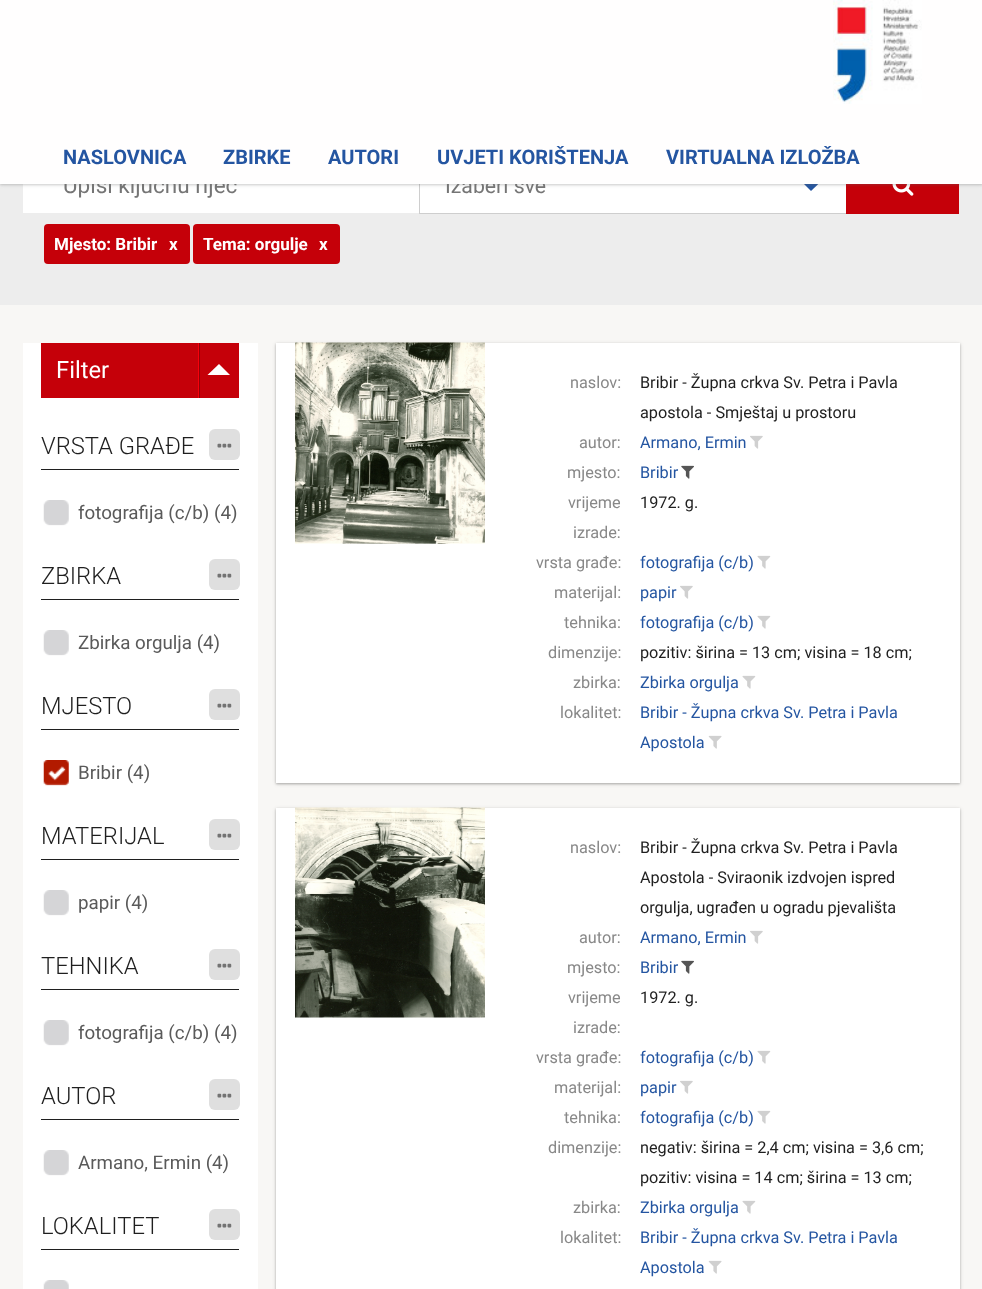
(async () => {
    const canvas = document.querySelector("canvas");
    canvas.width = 982;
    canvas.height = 1289;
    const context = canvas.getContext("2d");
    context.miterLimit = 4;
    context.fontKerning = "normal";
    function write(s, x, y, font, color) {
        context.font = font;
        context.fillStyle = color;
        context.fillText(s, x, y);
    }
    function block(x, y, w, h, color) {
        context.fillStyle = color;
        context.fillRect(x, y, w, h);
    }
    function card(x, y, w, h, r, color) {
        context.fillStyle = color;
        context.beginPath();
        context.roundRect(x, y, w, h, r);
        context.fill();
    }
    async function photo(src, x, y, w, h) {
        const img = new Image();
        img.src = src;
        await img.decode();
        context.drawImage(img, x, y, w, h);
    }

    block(0, 0, 982, 1289, "rgb(248, 247, 245)");
    block(0, 184, 982, 121, "rgb(237, 237, 237)");
    block(23, 184, 396, 29, "rgb(255, 255, 255)");
    block(420, 184, 426, 29, "rgb(255, 255, 255)");
    context.strokeStyle = "rgb(206, 206, 206)";
    context.strokeRect(419.5, 155.5, 428, 58);
    context.fillStyle = "rgb(36, 85, 161)";
    context.beginPath();
    context.moveTo(800, 180);
    context.lineTo(822.5, 180);
    context.lineTo(811, 191);
    context.closePath();
    context.fill();
    block(846, 184, 113, 30, "rgb(197, 0, 9)");
    await photo("media/2.png", 892, 184, 22, 12);
    context.fillStyle = "rgba(100, 100, 100, 0.24)";
    context.filter = "blur(1px)";
    context.beginPath();
    context.rect(0, 1, 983, 184);
    context.fill();
    context.filter = "none";
    context.fillStyle = "rgba(100, 100, 100, 0.12)";
    context.filter = "blur(2px)";
    context.beginPath();
    context.rect(0, 1, 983, 184);
    context.fill();
    context.filter = "none";
    write("Upiši ključnu riječ", 63, 193, "22.5px Roboto", "rgb(117, 117, 117)");
    write("Izaberi sve", 445, 193, "21.25px Roboto", "rgb(117, 117, 117)");
    block(0, 0, 982, 183, "rgb(255, 254, 254)");
    block(0, 183, 982, 1, "rgb(255, 255, 255)");
    await photo("media/1.png", 833, 0, 89, 104);
    write("NASLOVNICA", 63, 164, "bold 20px Roboto", "rgb(36, 85, 161)");
    write("ZBIRKE", 223, 164, "bold 20px Roboto", "rgb(36, 85, 161)");
    write("AUTORI", 328, 164, "bold 20px Roboto", "rgb(36, 85, 161)");
    write("UVJETI KORIŠTENJA", 437, 164, "bold 20px Roboto", "rgb(36, 85, 161)");
    write("VIRTUALNA IZLOŽBA", 666, 164, "bold 20px Roboto", "rgb(36, 85, 161)");
    card(44, 224, 146, 40, 4, "rgb(197, 0, 9)");
    write("Mjesto: Bribir", 54, 250, "bold 17px Roboto", "rgb(255, 255, 255)");
    write("x", 169, 250, "bold 17px Roboto", "rgb(255, 255, 255)");
    card(193, 224, 147, 40, 4, "rgb(197, 0, 9)");
    write("Tema: orgulje", 203, 250, "bold 17px Roboto", "rgb(255, 255, 255)");
    write("x", 319, 250, "bold 17px Roboto", "rgb(255, 255, 255)");
    block(23, 343, 235, 946, "rgb(255, 255, 255)");
    block(41, 343, 198, 55, "rgb(197, 0, 9)");
    block(198, 343, 1, 55, "rgb(248, 0, 11)");
    write("Filter", 56, 378, "23.75px Roboto", "rgb(255, 255, 255)");
    block(199, 343, 1, 55, "rgb(146, 0, 7)");
    context.fillStyle = "rgb(255, 255, 255)";
    context.beginPath();
    context.moveTo(230, 375);
    context.lineTo(207.5, 375);
    context.lineTo(219, 364);
    context.closePath();
    context.fill();
    block(41, 469, 198, 1, "rgb(31, 31, 31)");
    write("VRSTA GRAĐE", 41, 454, "300 23.75px Roboto", "rgb(31, 31, 31)");
    card(209, 429, 31, 31, 6, "rgb(223, 223, 223)");
    await photo("media/3.png", 217, 443, 15, 5);
    await photo("media/4.png", 43, 500, 26, 26);
    write("fotografija (c/b) (4)", 78, 519, "18.75px Roboto", "rgb(90, 90, 90)");
    block(41, 599, 198, 1, "rgb(31, 31, 31)");
    write("ZBIRKA", 41, 584, "300 23.75px Roboto", "rgb(31, 31, 31)");
    card(209, 559, 31, 31, 6, "rgb(223, 223, 223)");
    await photo("media/3.png", 217, 573, 15, 5);
    await photo("media/4.png", 43, 630, 26, 26);
    write("Zbirka orgulja (4)", 78, 649, "18.75px Roboto", "rgb(90, 90, 90)");
    block(41, 729, 198, 1, "rgb(31, 31, 31)");
    write("MJESTO", 41, 714, "300 23.75px Roboto", "rgb(31, 31, 31)");
    card(209, 689, 31, 31, 6, "rgb(223, 223, 223)");
    await photo("media/3.png", 217, 703, 15, 5);
    await photo("media/5.png", 43, 760, 26, 26);
    write("Bribir (4)", 78, 779, "18.75px Roboto", "rgb(90, 90, 90)");
    block(41, 859, 198, 1, "rgb(31, 31, 31)");
    write("MATERIJAL", 41, 844, "300 23.75px Roboto", "rgb(31, 31, 31)");
    card(209, 819, 31, 31, 6, "rgb(223, 223, 223)");
    await photo("media/3.png", 217, 833, 15, 5);
    await photo("media/4.png", 43, 890, 26, 26);
    write("papir (4)", 78, 909, "18.75px Roboto", "rgb(90, 90, 90)");
    block(41, 989, 198, 1, "rgb(31, 31, 31)");
    write("TEHNIKA", 41, 974, "300 23.75px Roboto", "rgb(31, 31, 31)");
    card(209, 949, 31, 31, 6, "rgb(223, 223, 223)");
    await photo("media/3.png", 217, 963, 15, 5);
    await photo("media/4.png", 43, 1020, 26, 26);
    write("fotografija (c/b) (4)", 78, 1039, "18.75px Roboto", "rgb(90, 90, 90)");
    block(41, 1119, 198, 1, "rgb(31, 31, 31)");
    write("AUTOR", 41, 1104, "300 23.75px Roboto", "rgb(31, 31, 31)");
    card(209, 1079, 31, 31, 6, "rgb(223, 223, 223)");
    await photo("media/3.png", 217, 1093, 15, 5);
    await photo("media/4.png", 43, 1150, 26, 26);
    write("Armano, Ermin (4)", 78, 1169, "18.75px Roboto", "rgb(90, 90, 90)");
    block(41, 1249, 198, 1, "rgb(31, 31, 31)");
    write("LOKALITET", 41, 1234, "300 23.75px Roboto", "rgb(31, 31, 31)");
    card(209, 1209, 31, 31, 6, "rgb(223, 223, 223)");
    await photo("media/3.png", 217, 1223, 15, 5);
    await photo("media/6.png", 43, 1280, 26, 9);
    context.fillStyle = "rgba(0, 0, 0, 0.24)";
    context.filter = "blur(1px)";
    context.beginPath();
    context.rect(276, 344, 684, 440);
    context.fill();
    context.filter = "none";
    context.fillStyle = "rgba(0, 0, 0, 0.12)";
    context.filter = "blur(2px)";
    context.beginPath();
    context.rect(276, 344, 684, 440);
    context.fill();
    context.filter = "none";
    block(276, 343, 684, 440, "rgb(255, 255, 255)");
    await photo("media/7.png", 295, 342, 190, 202);
    write("naslov:", 570, 388, "16.25px Roboto", "rgb(136, 136, 136)");
    write("Bribir - Župna crkva Sv. Petra i Pavla", 640, 388, "16.25px Roboto", "rgb(31, 31, 31)");
    write("apostola - Smještaj u prostoru", 640, 418, "16.25px Roboto", "rgb(31, 31, 31)");
    write("autor:", 579, 448, "16.25px Roboto", "rgb(136, 136, 136)");
    write("Armano, Ermin", 640, 448, "16.25px Roboto", "rgb(36, 85, 161)");
    await photo("media/8.png", 750, 435, 13, 14);
    write("mjesto:", 567, 478, "16.25px Roboto", "rgb(136, 136, 136)");
    write("Bribir", 640, 478, "16.25px Roboto", "rgb(36, 85, 161)");
    await photo("media/9.png", 681, 465, 13, 14);
    write("vrijeme", 568, 508, "16.25px Roboto", "rgb(136, 136, 136)");
    write("izrade:", 573, 538, "16.25px Roboto", "rgb(136, 136, 136)");
    write("1972. g.", 640, 508, "16.25px Roboto", "rgb(31, 31, 31)");
    write("vrsta građe:", 536, 568, "16.25px Roboto", "rgb(136, 136, 136)");
    write("fotografija (c/b)", 640, 568, "16.25px Roboto", "rgb(36, 85, 161)");
    await photo("media/10.png", 757, 555, 14, 14);
    write("materijal:", 554, 598, "16.25px Roboto", "rgb(136, 136, 136)");
    write("papir", 640, 598, "16.25px Roboto", "rgb(36, 85, 161)");
    await photo("media/8.png", 680, 585, 13, 14);
    write("tehnika:", 564, 628, "16.25px Roboto", "rgb(136, 136, 136)");
    write("fotografija (c/b)", 640, 628, "16.25px Roboto", "rgb(36, 85, 161)");
    await photo("media/10.png", 757, 615, 14, 14);
    write("dimenzije:", 548, 658, "16.25px Roboto", "rgb(136, 136, 136)");
    write("pozitiv: širina = 13 cm; visina = 18 cm;", 640, 658, "16.25px Roboto", "rgb(31, 31, 31)");
    write("zbirka:", 573, 688, "16.25px Roboto", "rgb(136, 136, 136)");
    write("Zbirka orgulja", 640, 688, "16.25px Roboto", "rgb(36, 85, 161)");
    await photo("media/10.png", 742, 675, 14, 14);
    write("lokalitet:", 560, 718, "16.25px Roboto", "rgb(136, 136, 136)");
    write("Bribir - Župna crkva Sv. Petra i Pavla", 640, 718, "16.25px Roboto", "rgb(36, 85, 161)");
    write("Apostola", 640, 748, "16.25px Roboto", "rgb(36, 85, 161)");
    await photo("media/11.png", 708, 735, 14, 14);
    context.fillStyle = "rgba(0, 0, 0, 0.24)";
    context.filter = "blur(1px)";
    context.beginPath();
    context.rect(276, 809, 684, 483);
    context.fill();
    context.filter = "none";
    context.fillStyle = "rgba(0, 0, 0, 0.12)";
    context.filter = "blur(2px)";
    context.beginPath();
    context.rect(276, 809, 684, 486);
    context.fill();
    context.filter = "none";
    block(276, 808, 684, 481, "rgb(255, 255, 255)");
    await photo("media/12.png", 295, 807, 190, 211);
    write("naslov:", 570, 853, "16.25px Roboto", "rgb(136, 136, 136)");
    write("Bribir - Župna crkva Sv. Petra i Pavla", 640, 853, "16.25px Roboto", "rgb(31, 31, 31)");
    write("Apostola - Sviraonik izdvojen ispred", 640, 883, "16.25px Roboto", "rgb(31, 31, 31)");
    write("orgulja, ugrađen u ogradu pjevališta", 640, 913, "16.25px Roboto", "rgb(31, 31, 31)");
    write("autor:", 579, 943, "16.25px Roboto", "rgb(136, 136, 136)");
    write("Armano, Ermin", 640, 943, "16.25px Roboto", "rgb(36, 85, 161)");
    await photo("media/8.png", 750, 930, 13, 14);
    write("mjesto:", 567, 973, "16.25px Roboto", "rgb(136, 136, 136)");
    write("Bribir", 640, 973, "16.25px Roboto", "rgb(36, 85, 161)");
    await photo("media/9.png", 681, 960, 13, 14);
    write("vrijeme", 568, 1003, "16.25px Roboto", "rgb(136, 136, 136)");
    write("izrade:", 573, 1033, "16.25px Roboto", "rgb(136, 136, 136)");
    write("1972. g.", 640, 1003, "16.25px Roboto", "rgb(31, 31, 31)");
    write("vrsta građe:", 536, 1063, "16.25px Roboto", "rgb(136, 136, 136)");
    write("fotografija (c/b)", 640, 1063, "16.25px Roboto", "rgb(36, 85, 161)");
    await photo("media/10.png", 757, 1050, 14, 14);
    write("materijal:", 554, 1093, "16.25px Roboto", "rgb(136, 136, 136)");
    write("papir", 640, 1093, "16.25px Roboto", "rgb(36, 85, 161)");
    await photo("media/8.png", 680, 1080, 13, 14);
    write("tehnika:", 564, 1123, "16.25px Roboto", "rgb(136, 136, 136)");
    write("fotografija (c/b)", 640, 1123, "16.25px Roboto", "rgb(36, 85, 161)");
    await photo("media/10.png", 757, 1110, 14, 14);
    write("dimenzije:", 548, 1153, "16.25px Roboto", "rgb(136, 136, 136)");
    write("negativ: širina = 2,4 cm; visina = 3,6 cm;", 640, 1153, "16.25px Roboto", "rgb(31, 31, 31)");
    write("pozitiv: visina = 14 cm; širina = 13 cm;", 640, 1183, "16.25px Roboto", "rgb(31, 31, 31)");
    write("zbirka:", 573, 1213, "16.25px Roboto", "rgb(136, 136, 136)");
    write("Zbirka orgulja", 640, 1213, "16.25px Roboto", "rgb(36, 85, 161)");
    await photo("media/10.png", 742, 1200, 14, 14);
    write("lokalitet:", 560, 1243, "16.25px Roboto", "rgb(136, 136, 136)");
    write("Bribir - Župna crkva Sv. Petra i Pavla", 640, 1243, "16.25px Roboto", "rgb(36, 85, 161)");
    write("Apostola", 640, 1273, "16.25px Roboto", "rgb(36, 85, 161)");
    await photo("media/11.png", 708, 1260, 14, 14);
})();
